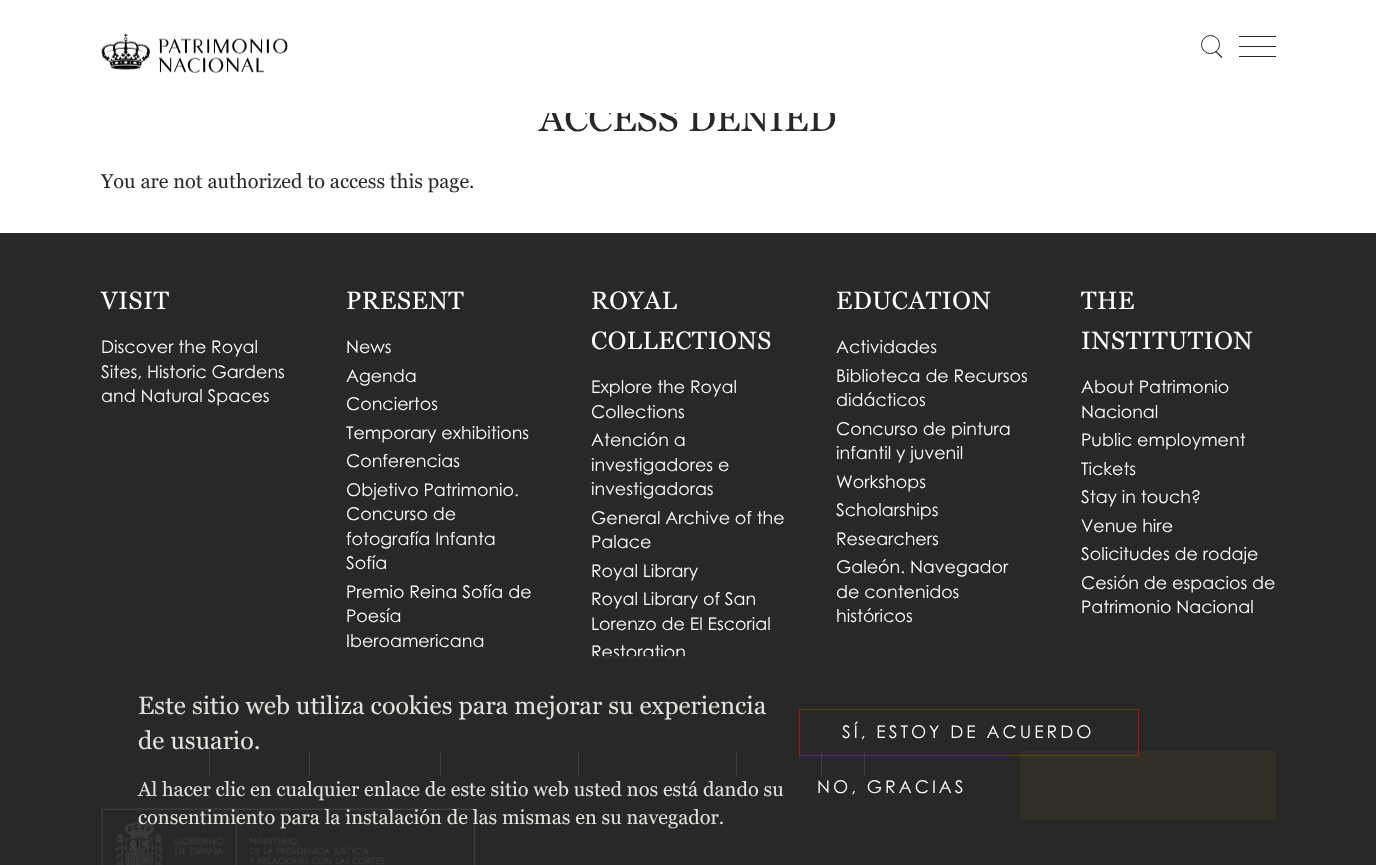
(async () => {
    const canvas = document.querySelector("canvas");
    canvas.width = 1376;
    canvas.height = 865;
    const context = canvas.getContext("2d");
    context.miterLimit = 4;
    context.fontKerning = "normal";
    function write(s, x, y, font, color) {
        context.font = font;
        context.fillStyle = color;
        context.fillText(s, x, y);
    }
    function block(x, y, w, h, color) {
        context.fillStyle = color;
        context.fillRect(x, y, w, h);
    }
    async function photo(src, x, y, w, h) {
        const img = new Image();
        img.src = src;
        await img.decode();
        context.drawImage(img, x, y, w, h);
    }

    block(0, 0, 1376, 865, "rgb(255, 255, 255)");
    write("ACCESS DENIED", 539, 131, "37.5px Georgia", "rgb(40, 40, 40)");
    block(548, 104, 287, 9, "rgb(255, 255, 255)");
    await photo("media/1.png", 101, 33, 187, 40);
    context.beginPath();
    context.arc(1210.5, 44.5, 9, 0, Math.PI * 2);
    context.strokeStyle = "rgb(40, 40, 40)";
    context.stroke();
    context.fillStyle = "rgb(40, 40, 40)";
    context.beginPath();
    context.moveTo(1222.5, 57);
    context.lineTo(1221.5, 58);
    context.lineTo(1215, 51.5);
    context.lineTo(1216, 51);
    context.closePath();
    context.fill();
    context.beginPath();
    context.moveTo(1217, 51.5);
    context.lineTo(1216, 52.5);
    context.lineTo(1215, 51.5);
    context.lineTo(1216, 51);
    context.closePath();
    context.fill();
    block(1239, 36, 37, 1, "rgb(40, 40, 40)");
    block(1239, 46, 37, 1, "rgb(40, 40, 40)");
    block(1239, 56, 37, 1, "rgb(40, 40, 40)");
    write("You are not authorized to access this page.", 101, 188, "20px Georgia", "rgb(40, 40, 40)");
    block(0, 233, 1376, 632, "rgb(40, 40, 40)");
    context.letterSpacing = "0.6px";
    write("VISIT", 101, 309, "25px Georgia", "rgb(255, 255, 255)");
    context.letterSpacing = "0px";
    write("Discover the Royal", 101, 353, "17.5px Century Gothic", "rgb(255, 255, 255)");
    write("Sites, Historic Gardens", 101, 378, "17.5px Century Gothic", "rgb(255, 255, 255)");
    write("and Natural Spaces", 101, 402, "17.5px Century Gothic", "rgb(255, 255, 255)");
    context.letterSpacing = "0.6px";
    write("PRESENT", 346, 309, "25px Georgia", "rgb(255, 255, 255)");
    context.letterSpacing = "0px";
    write("News", 346, 353, "17.5px Century Gothic", "rgb(255, 255, 255)");
    write("Agenda", 346, 382, "17.5px Century Gothic", "rgb(255, 255, 255)");
    write("Conciertos", 346, 410, "17.5px Century Gothic", "rgb(255, 255, 255)");
    write("Temporary exhibitions", 346, 439, "17.5px Century Gothic", "rgb(255, 255, 255)");
    write("Conferencias", 346, 467, "17.5px Century Gothic", "rgb(255, 255, 255)");
    write("Objetivo Patrimonio.", 346, 496, "17.5px Century Gothic", "rgb(255, 255, 255)");
    write("Concurso de", 346, 520, "17.5px Century Gothic", "rgb(255, 255, 255)");
    write("fotografía Infanta", 346, 545, "17.5px Century Gothic", "rgb(255, 255, 255)");
    write("Sofía", 346, 569, "17.5px Century Gothic", "rgb(255, 255, 255)");
    write("Premio Reina Sofía de", 346, 598, "17.5px Century Gothic", "rgb(255, 255, 255)");
    write("Poesía", 346, 622, "17.5px Century Gothic", "rgb(255, 255, 255)");
    write("Iberoamericana", 346, 647, "17.5px Century Gothic", "rgb(255, 255, 255)");
    context.letterSpacing = "0.6px";
    write("ROYAL", 591, 309, "25px Georgia", "rgb(255, 255, 255)");
    write("COLLECTIONS", 591, 349, "25px Georgia", "rgb(255, 255, 255)");
    context.letterSpacing = "0px";
    write("Explore the Royal", 591, 393, "17.5px Century Gothic", "rgb(255, 255, 255)");
    write("Collections", 591, 418, "17.5px Century Gothic", "rgb(255, 255, 255)");
    write("Atención a", 591, 446, "17.5px Century Gothic", "rgb(255, 255, 255)");
    write("investigadores e", 591, 471, "17.5px Century Gothic", "rgb(255, 255, 255)");
    write("investigadoras", 591, 495, "17.5px Century Gothic", "rgb(255, 255, 255)");
    write("General Archive of the", 591, 524, "17.5px Century Gothic", "rgb(255, 255, 255)");
    write("Palace", 591, 548, "17.5px Century Gothic", "rgb(255, 255, 255)");
    write("Royal Library", 591, 577, "17.5px Century Gothic", "rgb(255, 255, 255)");
    write("Royal Library of San", 591, 605, "17.5px Century Gothic", "rgb(255, 255, 255)");
    write("Lorenzo de El Escorial", 591, 630, "17.5px Century Gothic", "rgb(255, 255, 255)");
    write("Restoration", 591, 658, "17.5px Century Gothic", "rgb(255, 255, 255)");
    context.letterSpacing = "0.6px";
    write("EDUCATION", 836, 309, "25px Georgia", "rgb(255, 255, 255)");
    context.letterSpacing = "0px";
    write("Actividades", 836, 353, "17.5px Century Gothic", "rgb(255, 255, 255)");
    write("Biblioteca de Recursos", 836, 382, "17.5px Century Gothic", "rgb(255, 255, 255)");
    write("didácticos", 836, 406, "17.5px Century Gothic", "rgb(255, 255, 255)");
    write("Concurso de pintura", 836, 435, "17.5px Century Gothic", "rgb(255, 255, 255)");
    write("infantil y juvenil", 836, 459, "17.5px Century Gothic", "rgb(255, 255, 255)");
    write("Workshops", 836, 488, "17.5px Century Gothic", "rgb(255, 255, 255)");
    write("Scholarships", 836, 516, "17.5px Century Gothic", "rgb(255, 255, 255)");
    write("Researchers", 836, 545, "17.5px Century Gothic", "rgb(255, 255, 255)");
    write("Galeón. Navegador", 836, 573, "17.5px Century Gothic", "rgb(255, 255, 255)");
    write("de contenidos", 836, 598, "17.5px Century Gothic", "rgb(255, 255, 255)");
    write("históricos", 836, 622, "17.5px Century Gothic", "rgb(255, 255, 255)");
    context.letterSpacing = "0.6px";
    write("THE", 1081, 309, "25px Georgia", "rgb(255, 255, 255)");
    write("INSTITUTION", 1081, 349, "25px Georgia", "rgb(255, 255, 255)");
    context.letterSpacing = "0px";
    write("About Patrimonio", 1081, 393, "17.5px Century Gothic", "rgb(255, 255, 255)");
    write("Nacional", 1081, 418, "17.5px Century Gothic", "rgb(255, 255, 255)");
    write("Public employment", 1081, 446, "17.5px Century Gothic", "rgb(255, 255, 255)");
    write("Tickets", 1081, 475, "17.5px Century Gothic", "rgb(255, 255, 255)");
    write("Stay in touch?", 1081, 503, "17.5px Century Gothic", "rgb(255, 255, 255)");
    write("Venue hire", 1081, 532, "17.5px Century Gothic", "rgb(255, 255, 255)");
    write("Solicitudes de rodaje", 1081, 560, "17.5px Century Gothic", "rgb(255, 255, 255)");
    write("Cesión de espacios de", 1081, 589, "17.5px Century Gothic", "rgb(255, 255, 255)");
    write("Patrimonio Nacional", 1081, 613, "17.5px Century Gothic", "rgb(255, 255, 255)");
    block(209, 751, 1, 25, "rgb(255, 255, 255)");
    block(309, 751, 1, 25, "rgb(255, 255, 255)");
    block(440, 751, 1, 25, "rgb(255, 255, 255)");
    block(578, 751, 1, 25, "rgb(255, 255, 255)");
    block(736, 751, 1, 25, "rgb(255, 255, 255)");
    block(821, 751, 1, 25, "rgb(255, 255, 255)");
    block(864, 751, 1, 25, "rgb(255, 255, 255)");
    await photo("media/2.png", 101, 808, 375, 57);
    block(1020, 751, 256, 69, "rgb(143, 111, 36)");
    block(101, 656, 1175, 209, "rgba(40, 40, 40, 0.9)");
    write("Este sitio web utiliza cookies para mejorar su experiencia", 138, 714, "25px Georgia", "rgb(225, 227, 220)");
    write("de usuario.", 138, 749, "25px Georgia", "rgb(225, 227, 220)");
    write("Al hacer clic en cualquier enlace de este sitio web usted nos está dando su", 138, 796, "20px Georgia", "rgb(225, 227, 220)");
    write("consentimiento para la instalación de las mismas en su navegador.", 138, 824, "20px Georgia", "rgb(225, 227, 220)");
    context.strokeStyle = "rgb(180, 20, 0)";
    context.strokeRect(799.5, 709.5, 339, 46);
    context.letterSpacing = "3px";
    write("SÍ, ESTOY DE ACUERDO", 842, 738, "17.5px Century Gothic", "rgb(255, 255, 255)");
    write("NO, GRACIAS", 817, 793, "17.5px Century Gothic", "rgb(255, 255, 255)");
})();
